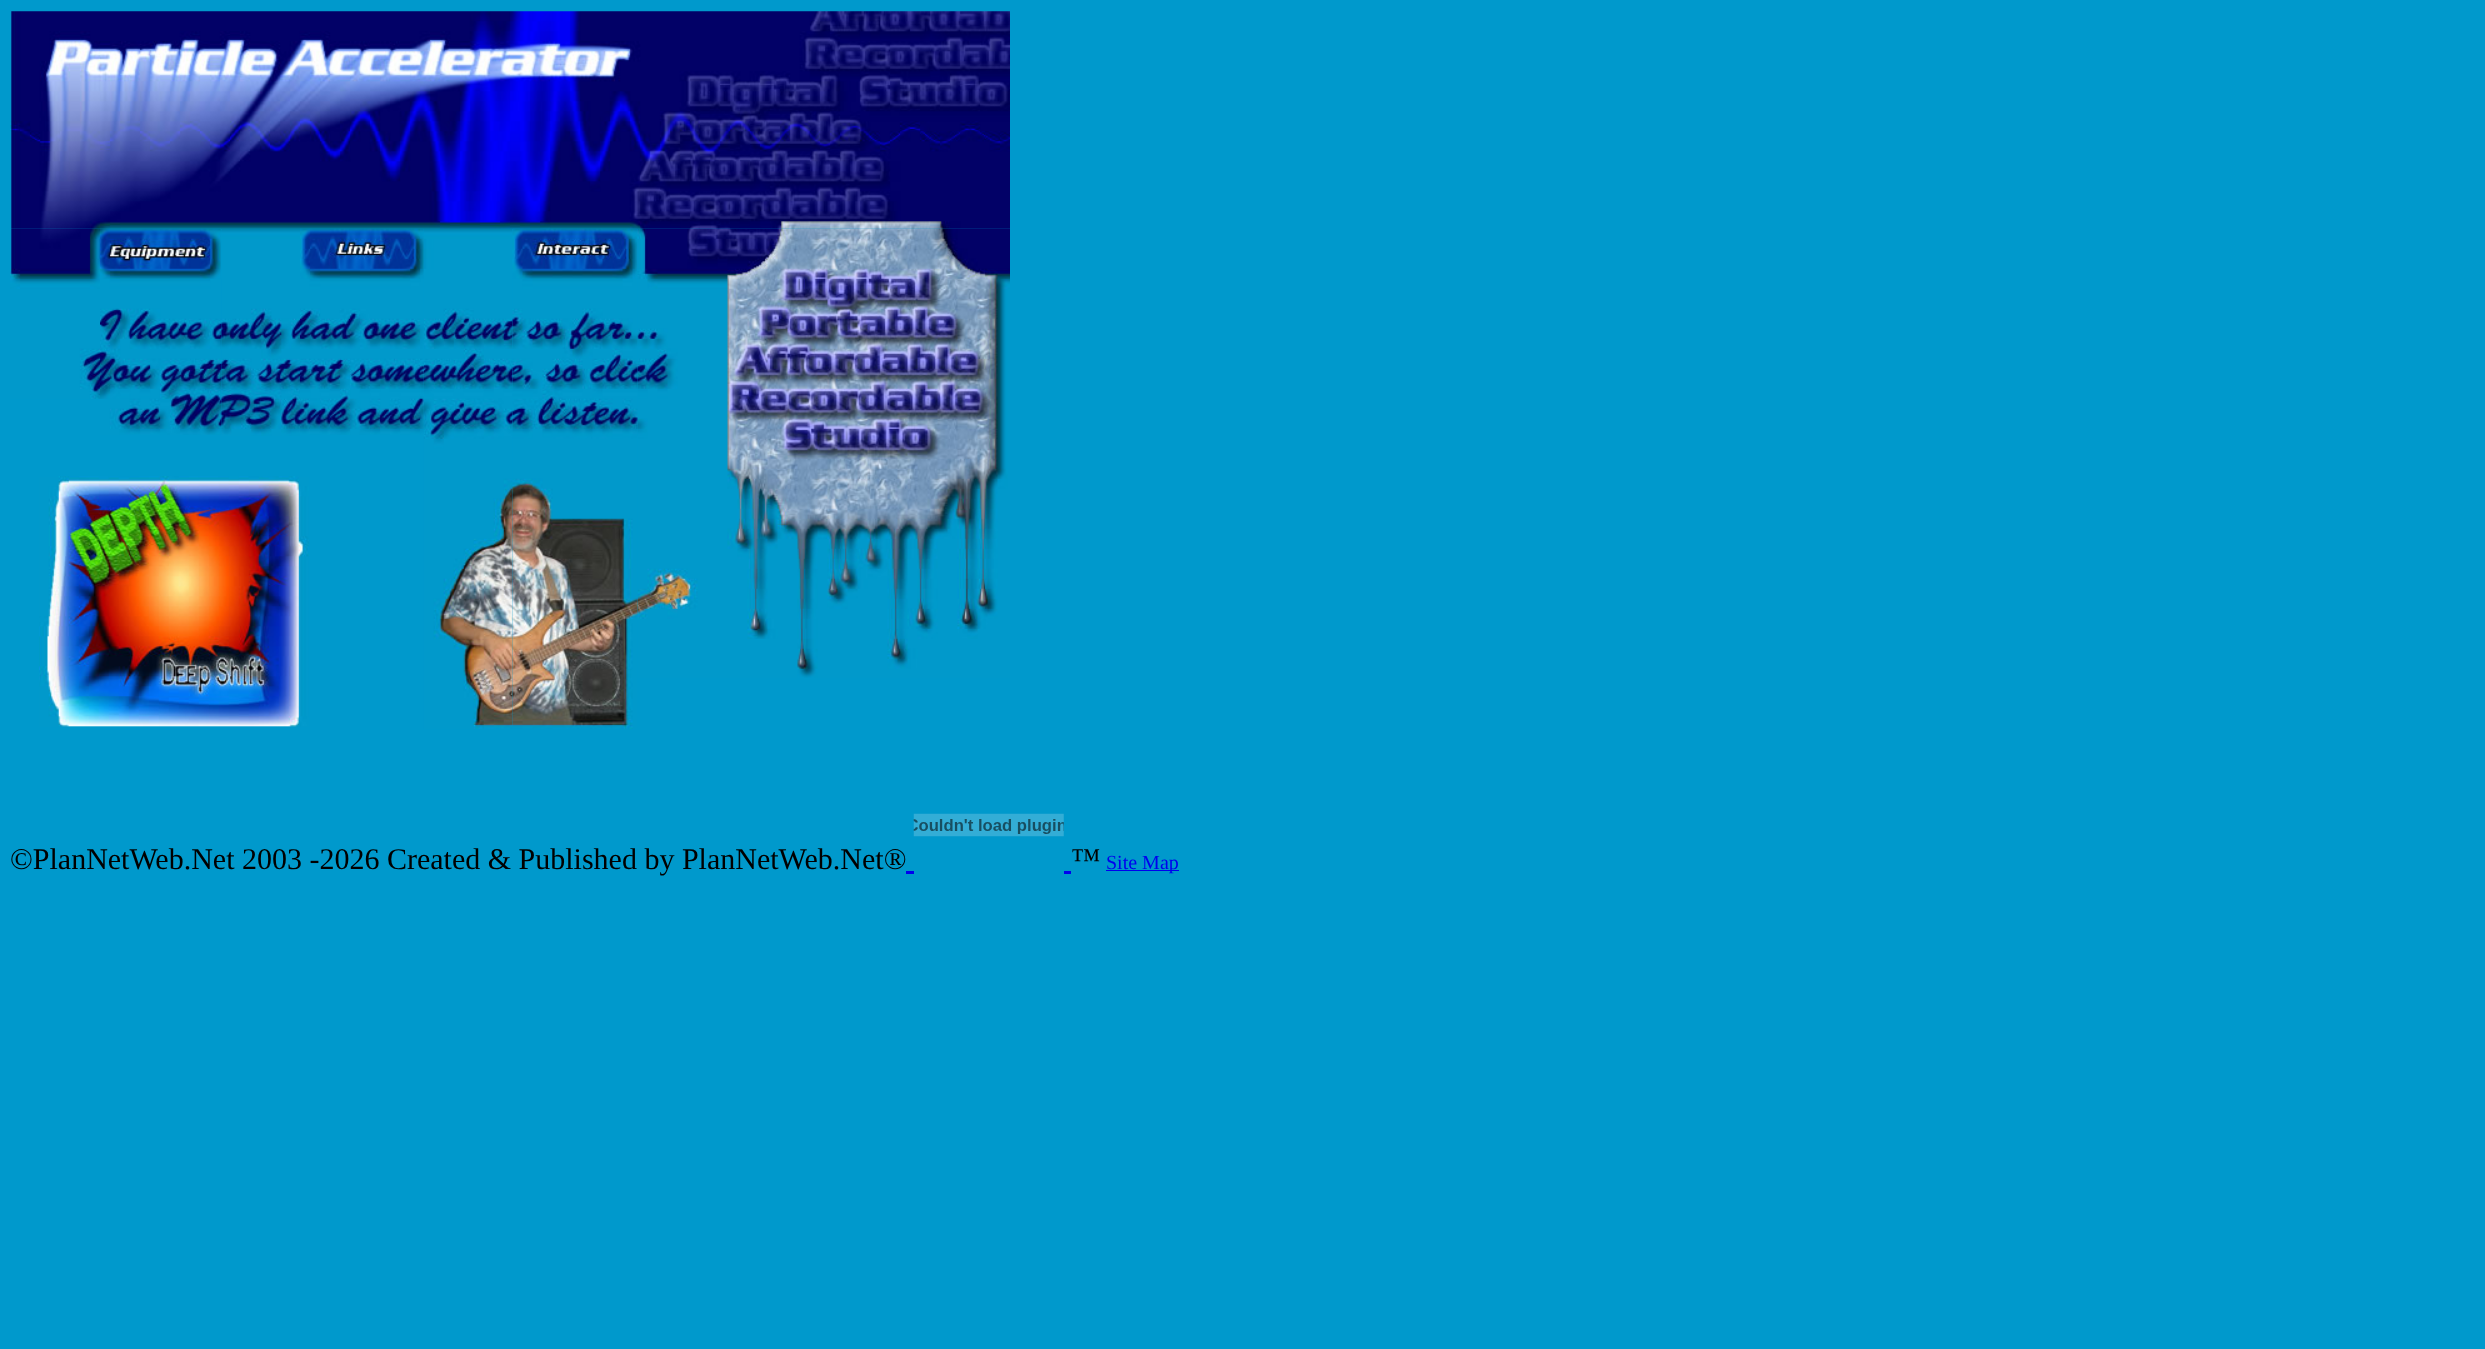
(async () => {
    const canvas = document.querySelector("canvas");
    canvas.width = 2485;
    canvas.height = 1349;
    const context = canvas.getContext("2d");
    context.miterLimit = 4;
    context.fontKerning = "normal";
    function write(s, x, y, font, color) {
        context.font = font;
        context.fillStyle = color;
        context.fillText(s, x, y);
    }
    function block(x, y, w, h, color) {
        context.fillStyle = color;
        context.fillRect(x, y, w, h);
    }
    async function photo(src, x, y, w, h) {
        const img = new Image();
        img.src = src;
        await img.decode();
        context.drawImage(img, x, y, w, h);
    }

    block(0, 0, 2485, 1349, "rgb(0, 153, 204)");
    await photo("media/1.png", 10, 11, 1000, 218);
    await photo("media/2.png", 10, 228, 90, 171);
    await photo("media/3.png", 100, 228, 122, 51);
    await photo("media/4.png", 221, 229, 79, 207);
    await photo("media/5.png", 300, 228, 124, 51);
    await photo("media/6.png", 423, 229, 90, 500);
    await photo("media/7.png", 512, 228, 126, 51);
    await photo("media/8.png", 637, 228, 373, 450);
    await photo("media/9.png", 100, 278, 122, 157);
    await photo("media/10.png", 300, 278, 124, 157);
    await photo("media/11.png", 512, 278, 126, 451);
    await photo("media/12.png", 39, 476, 270, 251);
    await photo("media/13.png", 913, 813, 151, 24);
    write("©PlanNetWeb.Net 2003 -2026 Created & Published by PlanNetWeb.Net®", 10, 869, "30px Liberation Serif", "rgb(0, 0, 0)");
    block(906, 871, 8, 3, "rgb(0, 0, 238)");
    write("™", 1071, 869, "30px Liberation Serif", "rgb(0, 0, 0)");
    block(1064, 871, 7, 3, "rgb(0, 0, 238)");
    block(1106, 870, 73, 1, "rgb(0, 0, 238)");
    write("Site Map", 1106, 869, "20px Liberation Serif", "rgb(0, 0, 238)");
})();
